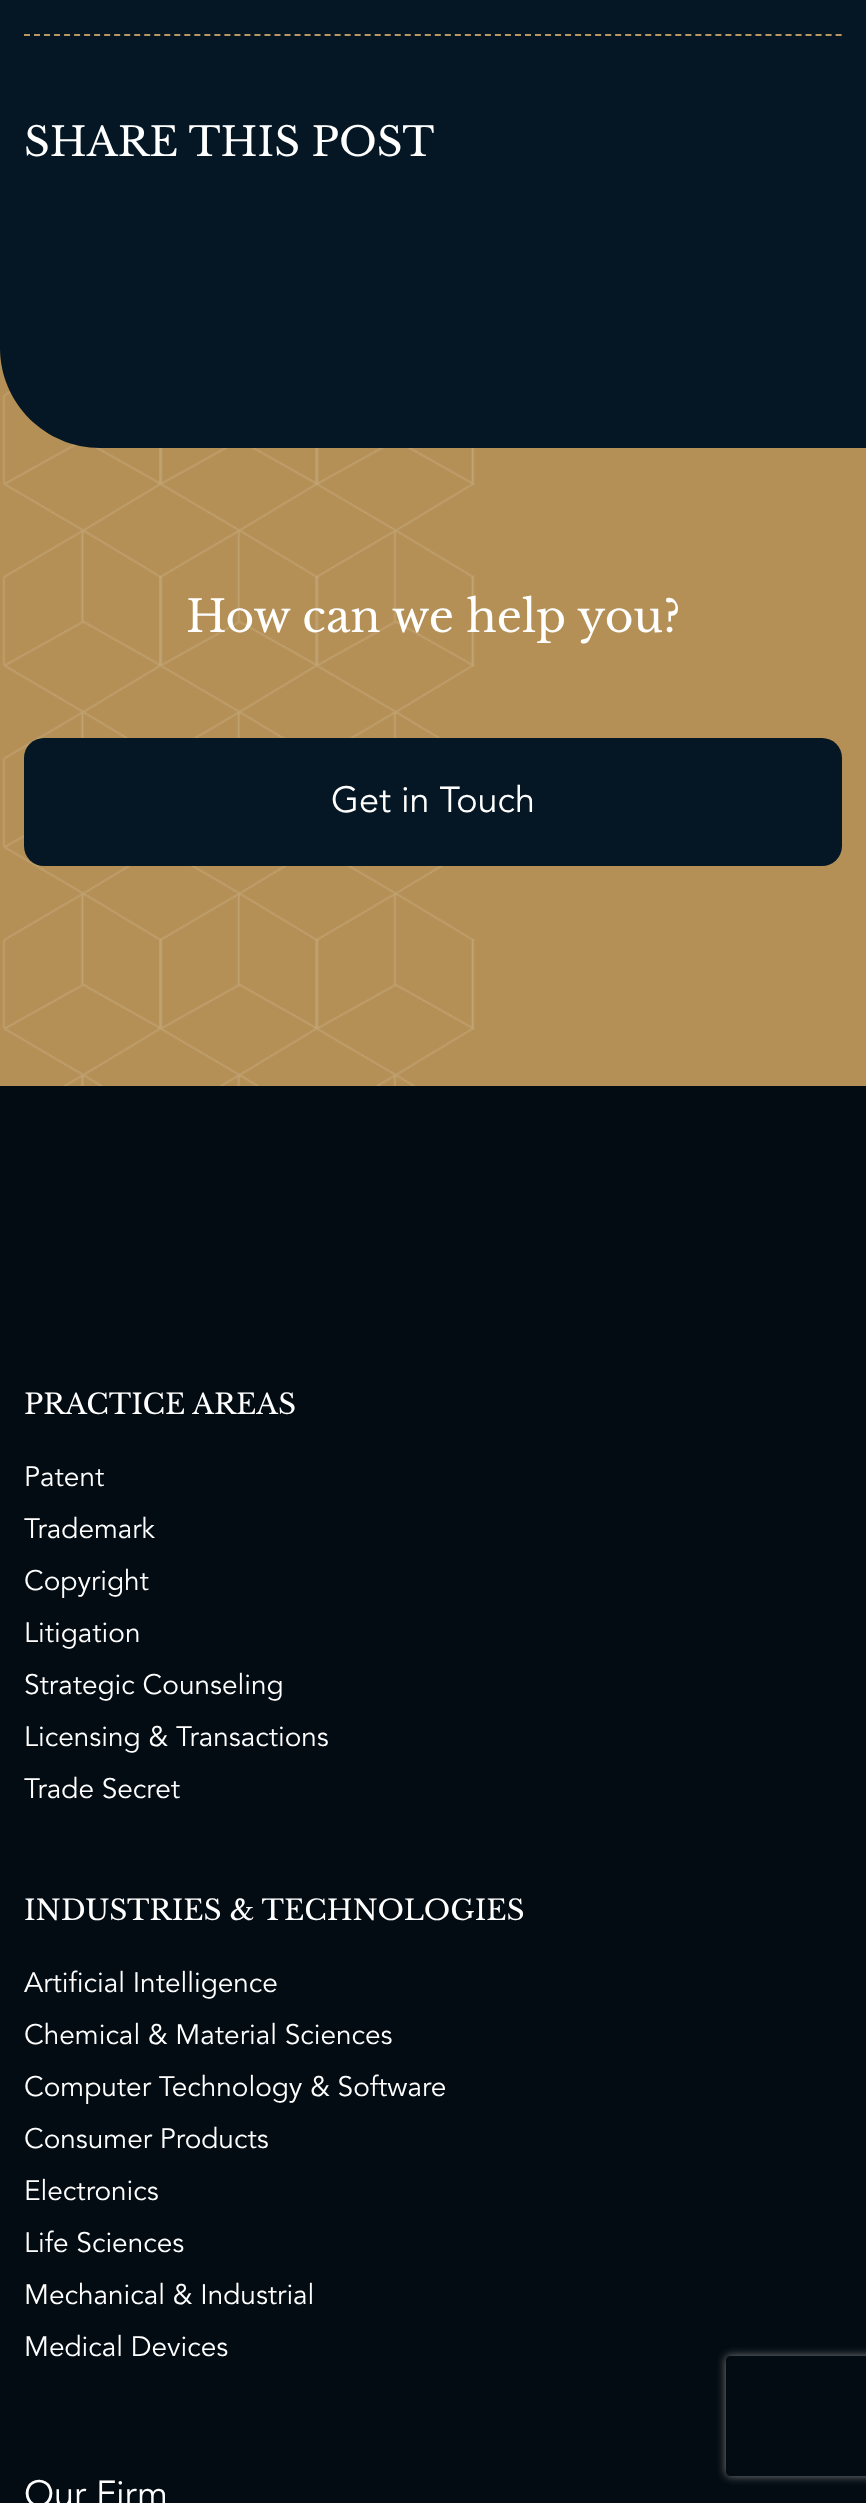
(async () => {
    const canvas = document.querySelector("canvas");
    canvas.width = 866;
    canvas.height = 2503;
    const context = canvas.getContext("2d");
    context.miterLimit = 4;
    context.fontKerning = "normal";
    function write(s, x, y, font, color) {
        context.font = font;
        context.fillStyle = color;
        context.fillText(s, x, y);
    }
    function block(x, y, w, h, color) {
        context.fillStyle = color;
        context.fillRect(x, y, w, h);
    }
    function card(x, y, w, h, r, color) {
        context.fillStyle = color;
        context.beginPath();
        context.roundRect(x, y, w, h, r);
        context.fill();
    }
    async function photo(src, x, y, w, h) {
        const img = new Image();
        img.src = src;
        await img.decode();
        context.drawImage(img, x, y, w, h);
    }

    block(0, 0, 866, 2503, "rgb(255, 255, 255)");
    await photo("media/1.png", 0, 348, 866, 738);
    context.fillStyle = "rgb(5, 23, 36)";
    context.beginPath();
    context.moveTo(0, -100);
    context.lineTo(766, -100);
    context.bezierCurveTo(821, -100, 866, -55, 866, 0);
    context.lineTo(866, 448);
    context.lineTo(100, 448);
    context.bezierCurveTo(45, 448, 0, 403, 0, 348);
    context.closePath();
    context.fill();
    context.beginPath();
    context.moveTo(24, 35);
    context.lineTo(842, 35);
    context.strokeStyle = "rgb(185, 151, 99)";
    context.lineWidth = 2;
    context.setLineDash([6, 4.02]);
    context.stroke();
    write("SHARE THIS POST", 24, 156, "40px Libre Baskerville", "rgb(255, 255, 255)");
    write("How can we help you?", 186, 632, "44px Libre Baskerville", "rgb(255, 255, 255)");
    card(24, 738, 818, 128, 20, "rgb(5, 23, 36)");
    write("Get in Touch", 331, 812, "36px Avenir", "rgb(255, 255, 255)");
    block(0, 1086, 866, 1417, "rgb(3, 12, 19)");
    write("PRACTICE AREAS", 24, 1414, "28px Libre Baskerville", "rgb(255, 255, 255)");
    write("Patent", 24, 1486, "28px Avenir", "rgb(255, 255, 255)");
    write("Trademark", 24, 1538, "28px Avenir", "rgb(255, 255, 255)");
    write("Copyright", 24, 1590, "28px Avenir", "rgb(255, 255, 255)");
    write("Litigation", 24, 1642, "28px Avenir", "rgb(255, 255, 255)");
    write("Strategic Counseling", 24, 1694, "28px Avenir", "rgb(255, 255, 255)");
    write("Licensing & Transactions", 24, 1746, "28px Avenir", "rgb(255, 255, 255)");
    write("Trade Secret", 24, 1798, "28px Avenir", "rgb(255, 255, 255)");
    write("INDUSTRIES & TECHNOLOGIES", 24, 1920, "28px Libre Baskerville", "rgb(255, 255, 255)");
    write("Artificial Intelligence", 24, 1992, "28px Avenir", "rgb(255, 255, 255)");
    write("Chemical & Material Sciences", 24, 2044, "28px Avenir", "rgb(255, 255, 255)");
    write("Computer Technology & Software", 24, 2096, "28px Avenir", "rgb(255, 255, 255)");
    write("Consumer Products", 24, 2148, "28px Avenir", "rgb(255, 255, 255)");
    write("Electronics", 24, 2200, "28px Avenir", "rgb(255, 255, 255)");
    write("Life Sciences", 24, 2252, "28px Avenir", "rgb(255, 255, 255)");
    write("Mechanical & Industrial", 24, 2304, "28px Avenir", "rgb(255, 255, 255)");
    write("Medical Devices", 24, 2356, "28px Avenir", "rgb(255, 255, 255)");
    write("Our Firm", 24, 2506, "36px Avenir", "rgb(255, 255, 255)");
    context.save();
    context.beginPath();
    context.moveTo(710, 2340);
    context.lineTo(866, 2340);
    context.lineTo(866, 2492);
    context.lineTo(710, 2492);
    context.closePath();
    context.moveTo(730, 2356);
    context.lineTo(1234, 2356);
    context.bezierCurveTo(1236, 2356, 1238, 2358, 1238, 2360);
    context.lineTo(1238, 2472);
    context.bezierCurveTo(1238, 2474, 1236, 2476, 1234, 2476);
    context.lineTo(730, 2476);
    context.bezierCurveTo(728, 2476, 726, 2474, 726, 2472);
    context.lineTo(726, 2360);
    context.bezierCurveTo(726, 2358, 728, 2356, 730, 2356);
    context.closePath();
    context.clip("evenodd");
    context.fillStyle = "rgb(128, 128, 128)";
    context.filter = "blur(5px)";
    context.beginPath();
    context.roundRect(726, 2356, 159, 120, 4);
    context.fill();
    context.filter = "none";
    context.restore();
})();
